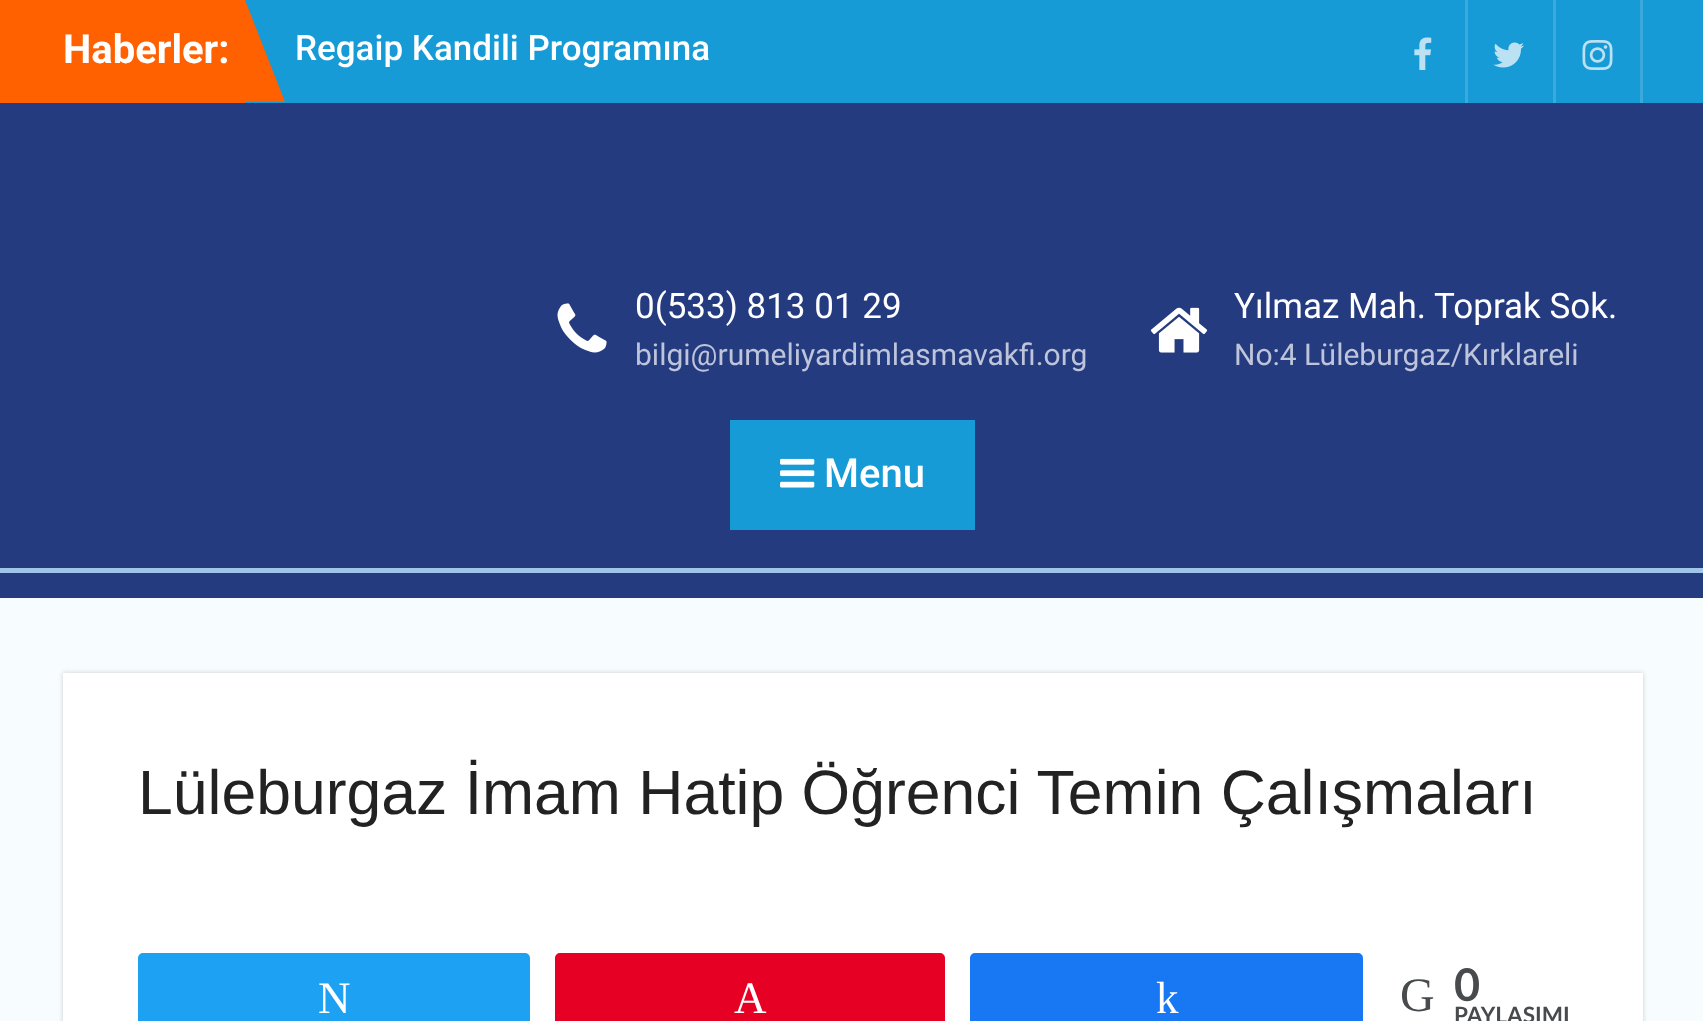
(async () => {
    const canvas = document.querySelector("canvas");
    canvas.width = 1703;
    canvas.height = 1021;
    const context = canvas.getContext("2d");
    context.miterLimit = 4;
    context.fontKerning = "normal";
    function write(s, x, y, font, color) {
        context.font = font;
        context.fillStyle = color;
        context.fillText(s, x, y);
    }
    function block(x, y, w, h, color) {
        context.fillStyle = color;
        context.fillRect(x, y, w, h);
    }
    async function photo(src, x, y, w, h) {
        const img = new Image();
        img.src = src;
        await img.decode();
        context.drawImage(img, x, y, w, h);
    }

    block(0, 0, 1703, 1021, "rgb(247, 252, 254)");
    block(245, 0, 1458, 103, "rgb(23, 155, 215)");
    block(0, 0, 245, 103, "rgb(255, 96, 0)");
    write("Haberler:", 63, 63, "bold 40px Roboto", "rgb(255, 255, 255)");
    context.fillStyle = "rgb(255, 96, 0)";
    context.beginPath();
    context.moveTo(245, 102);
    context.lineTo(245, 0);
    context.lineTo(285, 102);
    context.closePath();
    context.fill();
    write("Regaip Kandili Programına", 295, 60, "500 35px Roboto", "rgb(255, 255, 255)");
    block(1465, 0, 3, 103, "rgb(58, 170, 221)");
    await photo("media/1.png", 1414, 37, 18, 33);
    block(1553, 0, 3, 103, "rgb(58, 170, 221)");
    await photo("media/2.png", 1493, 42, 31, 26);
    block(1640, 0, 3, 103, "rgb(58, 170, 221)");
    await photo("media/3.png", 1582, 40, 31, 30);
    block(0, 103, 1703, 465, "rgb(37, 59, 128)");
    await photo("media/4.png", 557, 303, 50, 50);
    write("0(533) 813 01 29", 635, 318, "35px Roboto", "rgb(255, 255, 255)");
    write("bilgi@rumeliyardimlasmavakfi.org", 635, 365, "30px Roboto", "rgb(190, 196, 217)");
    await photo("media/5.png", 1150, 307, 58, 46);
    write("Yılmaz Mah. Toprak Sok.", 1234, 318, "35px Roboto", "rgb(255, 255, 255)");
    write("No:4 Lüleburgaz/Kırklareli", 1234, 365, "30px Roboto", "rgb(190, 196, 217)");
    block(730, 420, 245, 110, "rgb(23, 155, 215)");
    await photo("media/6.png", 780, 458, 35, 30);
    write("Menu", 824, 487, "500 40px Roboto", "rgb(255, 255, 255)");
    block(0, 573, 1703, 25, "rgb(37, 59, 128)");
    block(0, 568, 1703, 5, "rgb(160, 197, 232)");
    context.fillStyle = "rgb(207, 207, 207)";
    context.filter = "blur(2.5px)";
    context.beginPath();
    context.rect(63, 673, 1580, 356);
    context.fill();
    context.filter = "none";
    block(63, 673, 1580, 348, "rgb(255, 255, 255)");
    write("Lüleburgaz İmam Hatip Öğrenci Temin Çalışmaları", 138, 814, "62.5px Liberation Sans", "rgb(34, 34, 34)");
    context.fillStyle = "rgb(29, 161, 242)";
    context.beginPath();
    context.roundRect(139.5, 954.5, 389, 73, 3.5);
    context.fill();
    context.strokeStyle = "rgb(29, 161, 242)";
    context.lineWidth = 3;
    context.stroke();
    write("N", 318, 1013, "45px Liberation Serif", "rgb(255, 255, 255)");
    context.fillStyle = "rgb(230, 0, 35)";
    context.beginPath();
    context.roundRect(556.5, 954.5, 387, 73, 3.5);
    context.fill();
    context.strokeStyle = "rgb(230, 0, 35)";
    context.stroke();
    write("A", 734, 1013, "45px Liberation Serif", "rgb(255, 255, 255)");
    context.fillStyle = "rgb(24, 119, 242)";
    context.beginPath();
    context.roundRect(971.5, 954.5, 390, 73, 3.5);
    context.fill();
    context.strokeStyle = "rgb(24, 119, 242)";
    context.stroke();
    write("k", 1156, 1013, "45px Liberation Serif", "rgb(255, 255, 255)");
    write("G", 1400, 1011, "48px Liberation Serif", "rgb(71, 75, 77)");
    write("0", 1454, 1001, "bold 45px Lato", "rgb(71, 75, 77)");
    context.save();
    context.beginPath();
    context.rect(138, 953, 1430, 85);
    context.clip();
    write("PAYLAŞIML", 1454, 1023, "bold 22.5px Lato", "rgb(71, 75, 77)");
    context.restore();
})();
